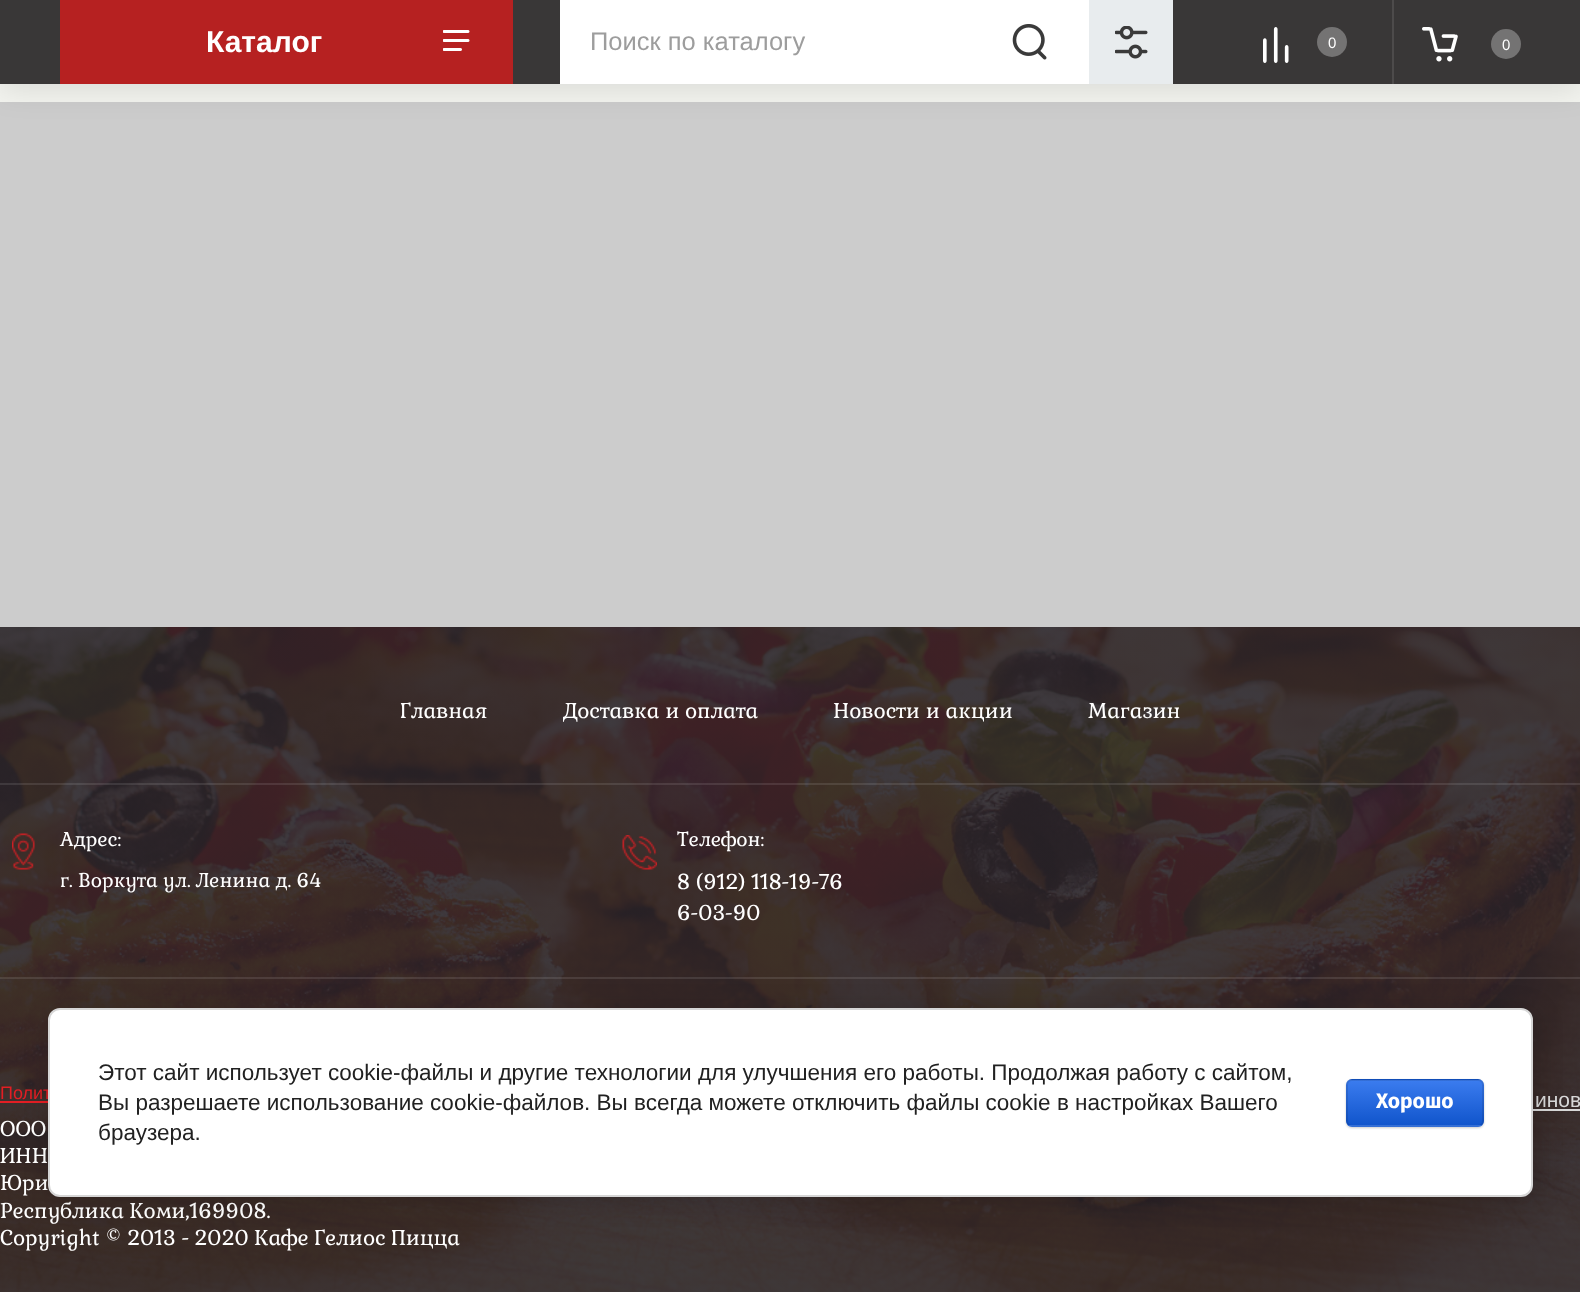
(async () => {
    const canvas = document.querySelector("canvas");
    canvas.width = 1580;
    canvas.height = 1292;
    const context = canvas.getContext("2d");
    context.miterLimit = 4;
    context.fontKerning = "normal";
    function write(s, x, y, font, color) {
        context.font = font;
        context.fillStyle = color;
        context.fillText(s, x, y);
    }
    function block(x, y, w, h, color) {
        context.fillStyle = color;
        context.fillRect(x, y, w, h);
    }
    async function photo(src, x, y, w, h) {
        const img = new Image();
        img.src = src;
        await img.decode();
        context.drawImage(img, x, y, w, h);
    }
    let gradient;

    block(0, 0, 1580, 1292, "rgb(255, 255, 255)");
    block(0, 84, 1580, 18, "rgb(243, 244, 239)");
    block(0, 102, 1580, 525, "rgb(204, 204, 204)");
    context.fillStyle = "rgba(0, 0, 0, 0.1)";
    context.filter = "blur(15px)";
    context.beginPath();
    context.rect(0, 6, 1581, 84);
    context.fill();
    context.filter = "none";
    block(0, 0, 1580, 84, "rgb(57, 55, 55)");
    block(60, 0, 453, 84, "rgb(182, 33, 33)");
    write("Каталог", 206, 52, "bold 30px Liberation Sans", "rgb(255, 255, 255)");
    await photo("media/1.png", 443, 30, 27, 21);
    block(560, 0, 529, 84, "rgb(255, 255, 255)");
    write("Поиск по каталогу", 590, 50, "25.5px Liberation Sans", "rgb(157, 157, 157)");
    await photo("media/2.png", 1012, 24, 35, 36);
    block(1089, 0, 84, 84, "rgb(232, 236, 238)");
    await photo("media/3.png", 1115, 26, 33, 33);
    block(1392, 0, 2, 84, "rgb(77, 75, 75)");
    await photo("media/4.png", 1263, 27, 26, 36);
    context.fillStyle = "rgb(116, 115, 115)";
    context.beginPath();
    context.arc(1332, 42, 15, 0, Math.PI * 2);
    context.fill();
    write("0", 1328, 48, "15px Liberation Sans", "rgb(255, 255, 255)");
    await photo("media/5.png", 1422, 27, 36, 35);
    context.fillStyle = "rgb(116, 115, 115)";
    context.beginPath();
    context.arc(1506, 44, 15, 0, Math.PI * 2);
    context.fill();
    write("0", 1502, 50, "15px Liberation Sans", "rgb(255, 255, 255)");
    await photo("media/6.png", 0, 627, 1580, 665);
    write("Главная", 400, 718, "21px Gabriela", "rgb(255, 255, 255)");
    write("Доставка и оплата", 563, 718, "21px Gabriela", "rgb(255, 255, 255)");
    write("Новости и акции", 833, 718, "21px Gabriela", "rgb(255, 255, 255)");
    write("Магазин", 1088, 718, "21px Gabriela", "rgb(255, 255, 255)");
    block(0, 783, 1580, 2, "rgba(255, 255, 255, 0.1)");
    block(0, 977, 1580, 2, "rgba(255, 255, 255, 0.1)");
    await photo("media/7.png", 12, 833, 23, 37);
    write("Адрес:", 60, 846, "19.5px Gabriela", "rgb(255, 255, 255)");
    write("г. Воркута ул. Ленина д. 64", 60, 887, "19.5px Gabriela", "rgb(255, 255, 255)");
    await photo("media/8.png", 622, 835, 35, 35);
    write("Телефон:", 677, 846, "19.5px Gabriela", "rgb(255, 255, 255)");
    write("8 (912) 118-19-76", 677, 889, "21px Gabriela", "rgb(255, 255, 255)");
    write("6-03-90", 677, 920, "21px Gabriela", "rgb(255, 255, 255)");
    write("Полит", 0, 1099, "18px Liberation Sans", "rgb(227, 30, 36)");
    block(0, 1101, 48, 2, "rgb(227, 30, 36)");
    write("ООО", 0, 1136, "21px Gabriela", "rgb(255, 255, 255)");
    write("ИНН", 0, 1163, "21px Gabriela", "rgb(255, 255, 255)");
    write("Юри", 0, 1190, "21px Gabriela", "rgb(255, 255, 255)");
    write("Республика Коми,169908.", 0, 1218, "21px Gabriela", "rgb(255, 255, 255)");
    write("Copyright © 2013 - 2020 Кафе Гелиос Пицца", 0, 1245, "21px Gabriela", "rgb(255, 255, 255)");
    write("инов", 1535, 1107, "21px Liberation Sans", "rgb(216, 216, 216)");
    block(1533, 1109, 47, 2, "rgb(216, 216, 216)");
    context.fillStyle = "rgba(0, 0, 0, 0.14)";
    context.filter = "blur(13.5px)";
    context.beginPath();
    context.roundRect(51, 1011, 1485, 189, 12);
    context.fill();
    context.filter = "none";
    context.fillStyle = "rgb(255, 255, 255)";
    context.beginPath();
    context.roundRect(49, 1009, 1483, 187, 11);
    context.fill();
    context.strokeStyle = "rgb(214, 214, 214)";
    context.lineWidth = 2;
    context.stroke();
    write("Этот сайт использует cookie-файлы и другие технологии для улучшения его работы. Продолжая работу с сайтом,", 98, 1080, "22.5px Liberation Sans", "rgb(33, 33, 33)");
    write("Вы разрешаете использование cookie-файлов. Вы всегда можете отключить файлы cookie в настройках Вашего", 98, 1110, "22.5px Liberation Sans", "rgb(33, 33, 33)");
    write("браузера.", 98, 1140, "22.5px Liberation Sans", "rgb(33, 33, 33)");
    context.fillStyle = "rgba(0, 0, 0, 0.2)";
    context.filter = "blur(1px)";
    context.beginPath();
    context.roundRect(1346, 1080, 138, 48, 6);
    context.fill();
    context.filter = "none";
    context.save();
    context.beginPath();
    context.roundRect(1346, 1079, 138, 48, 6);
    context.clip();
    gradient = context.createLinearGradient(1415, 1035, 1415, 1080);
    gradient.addColorStop(0, "rgb(59, 124, 239)");
    gradient.addColorStop(1, "rgb(17, 85, 204)");
    context.fillStyle = gradient;
    context.fillRect(1346, 1079, 138, 1);
    gradient = context.createLinearGradient(1415, 1080, 1415, 1125);
    gradient.addColorStop(0, "rgb(59, 124, 239)");
    gradient.addColorStop(1, "rgb(17, 85, 204)");
    context.fillStyle = gradient;
    context.fillRect(1346, 1080, 138, 45);
    gradient = context.createLinearGradient(1415, 1125, 1415, 1170);
    gradient.addColorStop(0, "rgb(59, 124, 239)");
    gradient.addColorStop(1, "rgb(17, 85, 204)");
    context.fillStyle = gradient;
    context.fillRect(1346, 1125, 138, 2);
    context.restore();
    context.beginPath();
    context.roundRect(1347, 1080, 136, 46, 5);
    context.strokeStyle = "rgba(0, 0, 0, 0.1)";
    context.stroke();
    write("Хорошо", 1376, 1108, "bold 21px Fira Sans", "rgb(255, 255, 255)");
})();
